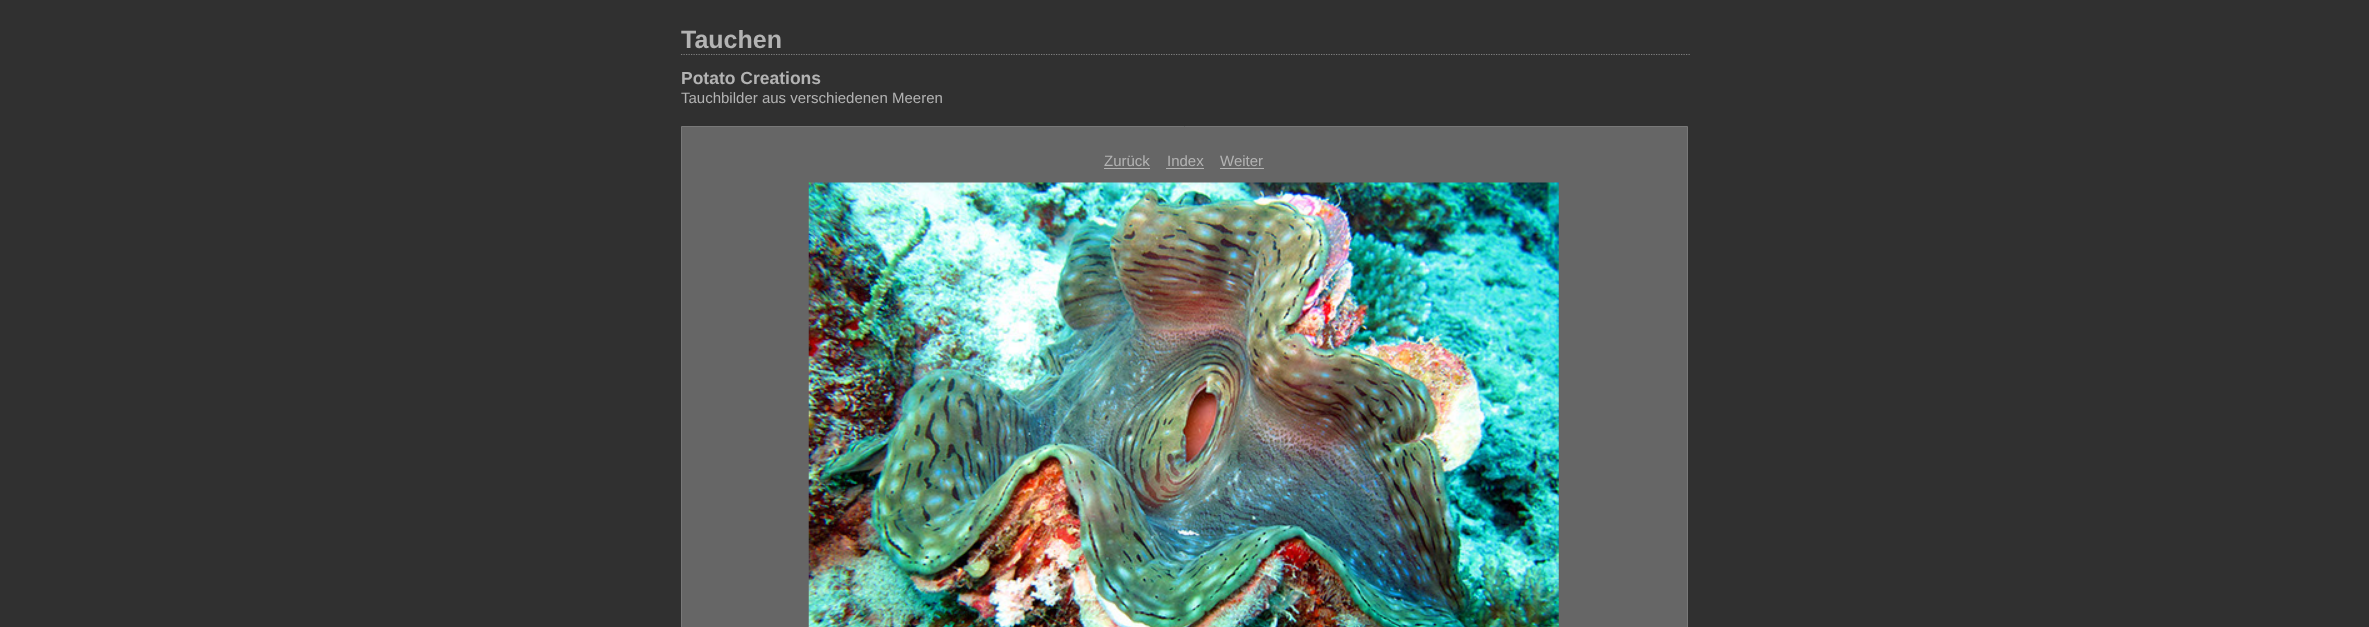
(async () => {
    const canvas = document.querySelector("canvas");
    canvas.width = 2369;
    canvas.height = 627;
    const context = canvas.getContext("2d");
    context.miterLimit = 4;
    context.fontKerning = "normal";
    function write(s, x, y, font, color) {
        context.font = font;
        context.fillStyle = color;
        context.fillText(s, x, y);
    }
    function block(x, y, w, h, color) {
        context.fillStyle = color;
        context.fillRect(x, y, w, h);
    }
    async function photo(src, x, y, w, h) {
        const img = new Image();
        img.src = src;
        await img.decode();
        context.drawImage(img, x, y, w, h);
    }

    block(0, 0, 2369, 627, "rgb(48, 48, 48)");
    context.beginPath();
    context.moveTo(681, 54.5);
    context.lineTo(1690, 54.5);
    context.strokeStyle = "rgb(127, 127, 127)";
    context.lineWidth = 1.2;
    context.setLineDash([1.25, 1.25]);
    context.stroke();
    write("Tauchen", 681, 48, "bold 25px Liberation Sans", "rgb(179, 179, 179)");
    write("Potato Creations", 681, 84, "bold 17.5px Liberation Sans", "rgb(179, 179, 179)");
    write("Tauchbilder aus verschiedenen Meeren", 681, 103, "15px Liberation Sans", "rgb(179, 179, 179)");
    context.fillStyle = "rgb(102, 102, 102)";
    context.beginPath();
    context.rect(681.5, 126.5, 1006, 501);
    context.fill();
    context.strokeStyle = "rgb(120, 120, 120)";
    context.lineWidth = 1;
    context.setLineDash([]);
    context.stroke();
    write("Zurück", 1104, 166, "15px Liberation Sans", "rgb(179, 179, 179)");
    block(1104, 168, 46, 1, "rgb(179, 179, 179)");
    write("Index", 1167, 166, "15px Liberation Sans", "rgb(179, 179, 179)");
    block(1166, 168, 38, 1, "rgb(179, 179, 179)");
    write("Weiter", 1220, 166, "15px Liberation Sans", "rgb(179, 179, 179)");
    block(1220, 168, 44, 1, "rgb(179, 179, 179)");
    await photo("media/1.png", 808, 182, 751, 445);
})();
